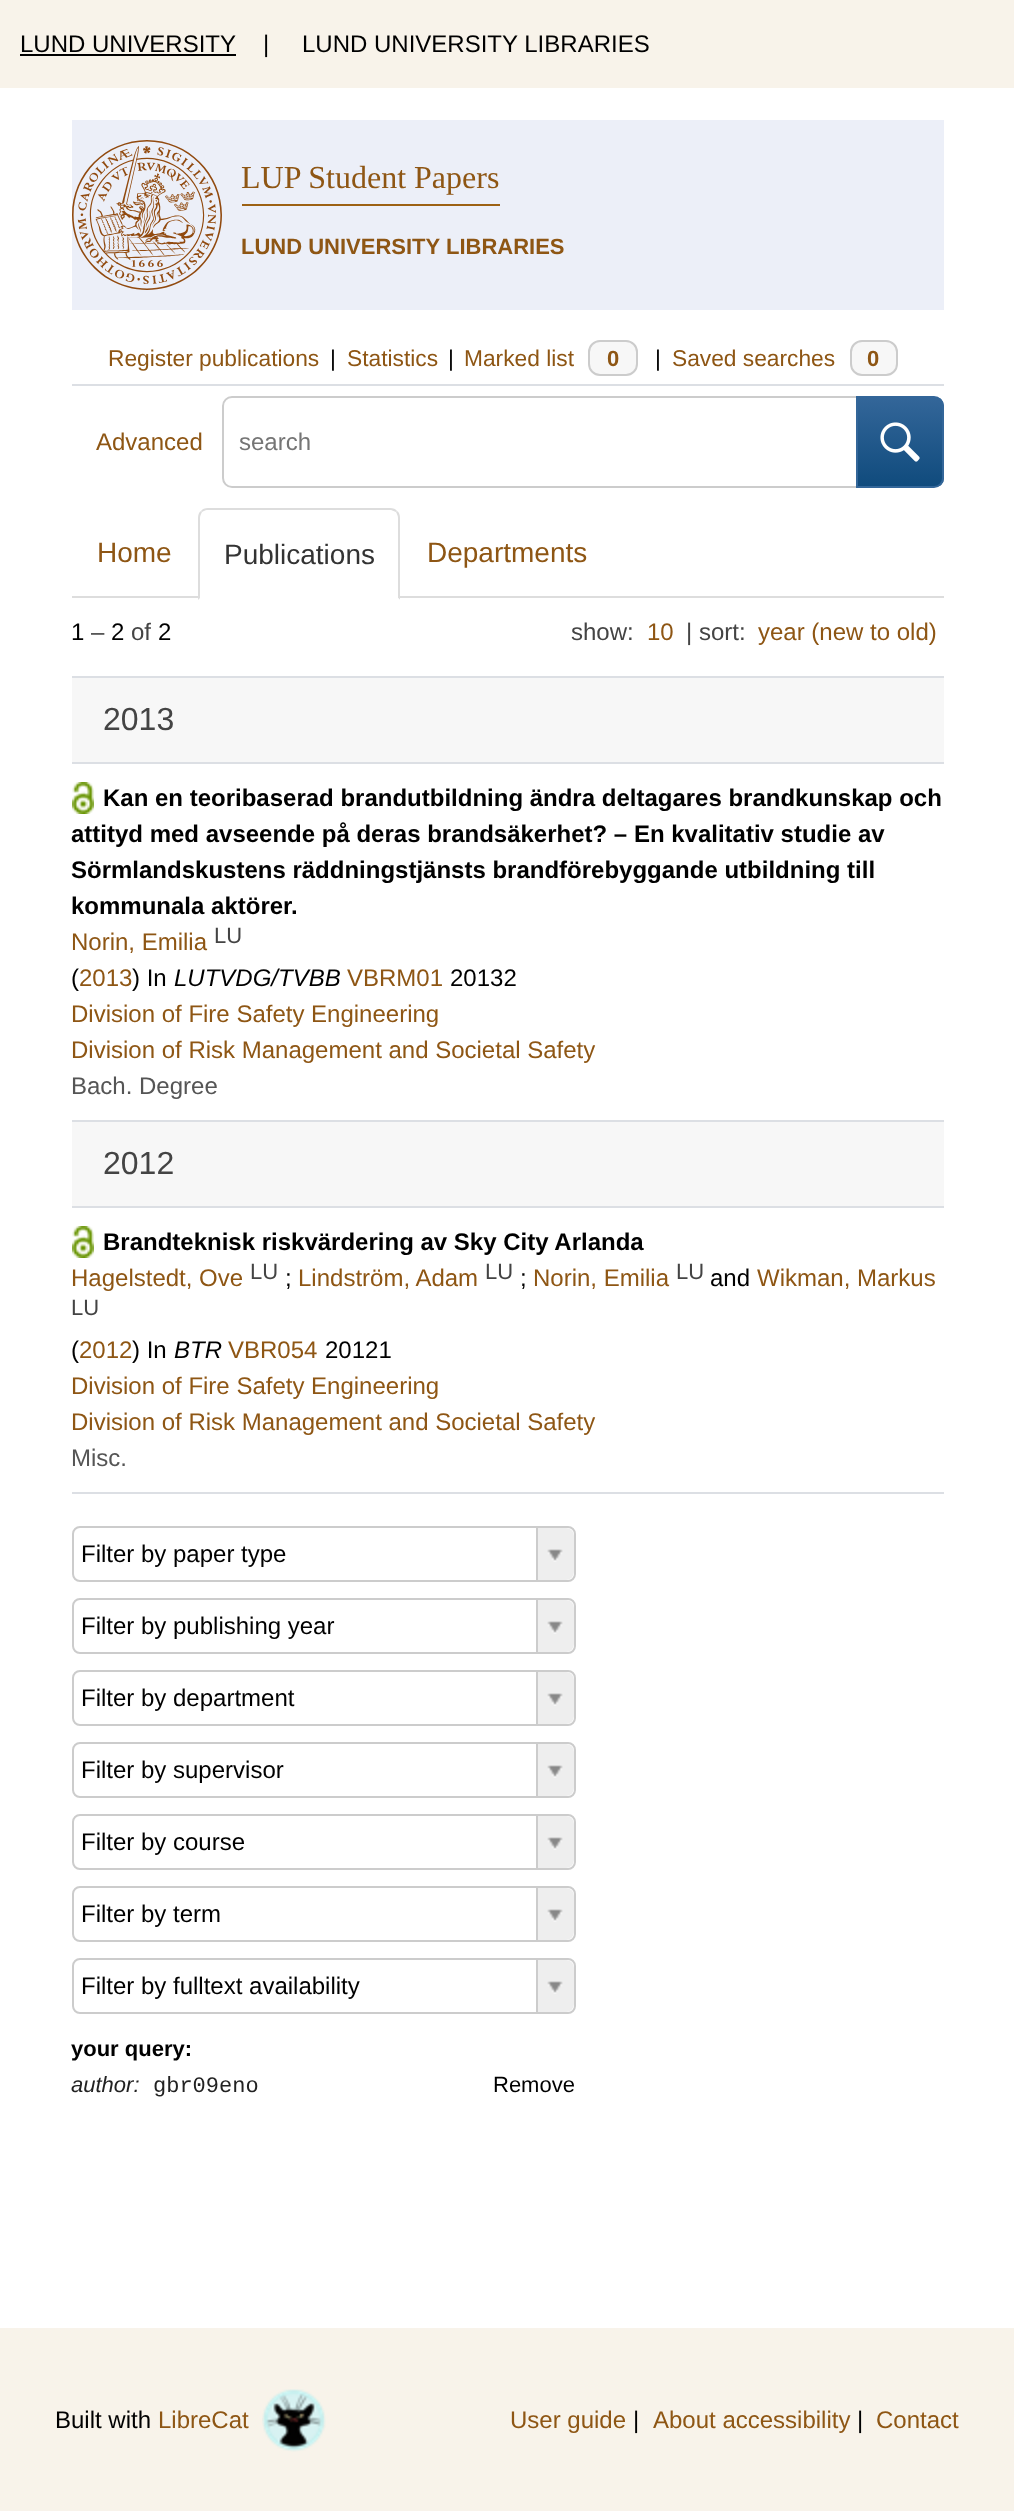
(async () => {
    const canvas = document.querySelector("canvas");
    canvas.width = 1014;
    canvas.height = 2511;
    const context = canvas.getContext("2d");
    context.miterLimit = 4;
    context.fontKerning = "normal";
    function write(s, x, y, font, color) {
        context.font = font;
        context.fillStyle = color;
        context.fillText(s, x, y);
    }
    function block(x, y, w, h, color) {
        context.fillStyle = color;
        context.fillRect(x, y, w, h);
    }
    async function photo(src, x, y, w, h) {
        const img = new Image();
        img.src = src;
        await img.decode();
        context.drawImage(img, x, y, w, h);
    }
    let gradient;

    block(0, 0, 1014, 2511, "rgb(255, 255, 255)");
    block(0, 0, 1014, 88, "rgb(248, 243, 234)");
    write("LUND UNIVERSITY", 20, 52, "24px Liberation Sans", "rgb(0, 0, 0)");
    block(20, 54, 216, 2, "rgb(0, 0, 0)");
    write("|", 263, 52, "24px Liberation Sans", "rgb(0, 0, 0)");
    write("LUND UNIVERSITY LIBRARIES", 302, 52, "24px Liberation Sans", "rgb(0, 0, 0)");
    block(72, 120, 872, 190, "rgb(236, 239, 248)");
    await photo("media/1.png", 72, 140, 150, 150);
    write("LUP Student Papers", 241, 188, "32px Liberation Serif", "rgb(142, 86, 20)");
    block(242, 204, 258, 2, "rgb(156, 97, 20)");
    write("LUND UNIVERSITY LIBRARIES", 241, 254, "bold 22px Liberation Sans", "rgb(142, 86, 20)");
    block(72, 384, 872, 2, "rgb(220, 223, 228)");
    write("Register publications", 108, 366, "22.75px Liberation Sans", "rgb(142, 86, 20)");
    write("|", 330, 366, "22.75px Liberation Sans", "rgb(0, 0, 0)");
    write("Statistics", 347, 366, "22.75px Liberation Sans", "rgb(142, 86, 20)");
    write("|", 448, 366, "22.75px Liberation Sans", "rgb(0, 0, 0)");
    write("Marked list", 464, 366, "22.75px Liberation Sans", "rgb(142, 86, 20)");
    context.fillStyle = "rgb(247, 247, 247)";
    context.beginPath();
    context.roundRect(589, 341, 48, 34, 11);
    context.fill();
    context.strokeStyle = "rgb(204, 204, 204)";
    context.lineWidth = 2;
    context.stroke();
    write("0", 607, 366, "bold 22px Liberation Sans", "rgb(142, 86, 20)");
    write("|", 655, 366, "22.75px Liberation Sans", "rgb(0, 0, 0)");
    write("Saved searches", 672, 366, "22.75px Liberation Sans", "rgb(142, 86, 20)");
    context.fillStyle = "rgb(247, 247, 247)";
    context.beginPath();
    context.roundRect(851, 341, 46, 34, 11);
    context.fill();
    context.stroke();
    write("0", 867, 366, "bold 22px Liberation Sans", "rgb(142, 86, 20)");
    write("Advanced", 96, 450, "24px Liberation Sans", "rgb(142, 86, 20)");
    context.beginPath();
    context.roundRect(223, 397, 634, 90, [9, 0, 0, 9]);
    context.stroke();
    write("search", 239, 450, "24px Liberation Sans", "rgb(117, 117, 117)");
    context.save();
    context.beginPath();
    context.roundRect(856, 396, 88, 92, [0, 10, 10, 0]);
    context.clip();
    gradient = context.createLinearGradient(900, 398, 900, 486);
    gradient.addColorStop(0, "rgb(51, 102, 153)");
    gradient.addColorStop(1, "rgb(16, 75, 125)");
    context.fillStyle = gradient;
    context.fillRect(858, 398, 86, 88);
    context.restore();
    context.beginPath();
    context.roundRect(857, 397, 86, 90, [0, 9, 9, 0]);
    context.strokeStyle = "rgb(51, 102, 153)";
    context.stroke();
    await photo("media/2.png", 880, 422, 40, 40);
    block(72, 596, 872, 2, "rgb(221, 221, 221)");
    write("Home", 97, 562, "28px Liberation Sans", "rgb(142, 86, 20)");
    context.fillStyle = "rgb(255, 255, 255)";
    context.beginPath();
    context.roundRect(198, 508, 202, 92, [10, 10, 0, 0]);
    context.fill();
    context.fillStyle = "rgb(221, 221, 221)";
    context.beginPath();
    context.moveTo(208, 508);
    context.bezierCurveTo(205, 508, 202, 509, 201, 511);
    context.lineTo(202, 512);
    context.bezierCurveTo(204, 511, 205, 510, 207, 510);
    context.lineTo(391, 510);
    context.lineTo(396, 512);
    context.lineTo(397, 511);
    context.bezierCurveTo(396, 509, 393, 508, 390, 508);
    context.closePath();
    context.fill();
    context.beginPath();
    context.moveTo(400, 600);
    context.lineTo(400, 518);
    context.bezierCurveTo(400, 515, 399, 512, 397, 511);
    context.lineTo(396, 512);
    context.bezierCurveTo(397, 514, 398, 516, 398, 518);
    context.lineTo(398, 598);
    context.closePath();
    context.fill();
    context.fillStyle = "rgb(255, 255, 255)";
    context.beginPath();
    context.moveTo(400, 600);
    context.lineTo(398, 598);
    context.lineTo(200, 598);
    context.lineTo(198, 600);
    context.closePath();
    context.fill();
    context.fillStyle = "rgb(221, 221, 221)";
    context.beginPath();
    context.moveTo(198, 600);
    context.lineTo(200, 598);
    context.lineTo(200, 518);
    context.bezierCurveTo(200, 516, 201, 514, 202, 512);
    context.lineTo(201, 511);
    context.bezierCurveTo(199, 512, 198, 515, 198, 518);
    context.closePath();
    context.fill();
    write("Publications", 224, 564, "28px Liberation Sans", "rgb(51, 51, 51)");
    write("Departments", 427, 562, "28px Liberation Sans", "rgb(142, 86, 20)");
    write("1", 71, 640, "24px Liberation Sans", "rgb(0, 0, 0)");
    write("–", 91, 640, "24px Liberation Sans", "rgb(68, 68, 68)");
    write("2", 111, 640, "24px Liberation Sans", "rgb(0, 0, 0)");
    write("of", 131, 640, "24px Liberation Sans", "rgb(68, 68, 68)");
    write("2", 158, 640, "24px Liberation Sans", "rgb(0, 0, 0)");
    write("show:", 571, 640, "24px Liberation Sans", "rgb(68, 68, 68)");
    write("10", 647, 640, "24px Liberation Sans", "rgb(142, 86, 20)");
    write("| sort:", 686, 640, "24px Liberation Sans", "rgb(68, 68, 68)");
    write("year (new to old)", 758, 640, "24px Liberation Sans", "rgb(142, 86, 20)");
    block(72, 676, 872, 2, "rgb(220, 223, 228)");
    block(72, 678, 872, 84, "rgb(247, 247, 247)");
    block(72, 762, 872, 2, "rgb(220, 223, 228)");
    write("2013", 103, 730, "32px Liberation Sans", "rgb(68, 68, 68)");
    await photo("media/3.png", 72, 782, 22, 32);
    block(72, 1120, 872, 2, "rgb(220, 223, 228)");
    write("Kan en teoribaserad brandutbildning ändra deltagares brandkunskap och", 103, 806, "bold 24px Liberation Sans", "rgb(0, 0, 0)");
    write("attityd med avseende på deras brandsäkerhet? – En kvalitativ studie av", 71, 842, "bold 24px Liberation Sans", "rgb(0, 0, 0)");
    write("Sörmlandskustens räddningstjänsts brandförebyggande utbildning till", 71, 878, "bold 24px Liberation Sans", "rgb(0, 0, 0)");
    write("kommunala aktörer.", 71, 914, "bold 24px Liberation Sans", "rgb(0, 0, 0)");
    write("Norin, Emilia", 71, 950, "24px Liberation Sans", "rgb(142, 86, 20)");
    write("LU", 214, 943, "22px Liberation Sans", "rgb(68, 68, 68)");
    write("(", 71, 986, "24px Liberation Sans", "rgb(0, 0, 0)");
    write("2013", 79, 986, "24px Liberation Sans", "rgb(142, 86, 20)");
    write(") In", 132, 986, "24px Liberation Sans", "rgb(0, 0, 0)");
    write("LUTVDG/TVBB", 174, 986, "italic 24px Liberation Sans", "rgb(0, 0, 0)");
    write("VBRM01", 347, 986, "24px Liberation Sans", "rgb(142, 86, 20)");
    write("20132", 450, 986, "24px Liberation Sans", "rgb(0, 0, 0)");
    write("Division of Fire Safety Engineering", 71, 1022, "24px Liberation Sans", "rgb(142, 86, 20)");
    write("Division of Risk Management and Societal Safety", 71, 1058, "24px Liberation Sans", "rgb(142, 86, 20)");
    write("Bach. Degree", 71, 1094, "24px Liberation Sans", "rgb(85, 85, 85)");
    block(72, 1122, 872, 84, "rgb(247, 247, 247)");
    block(72, 1206, 872, 2, "rgb(220, 223, 228)");
    write("2012", 103, 1174, "32px Liberation Sans", "rgb(68, 68, 68)");
    await photo("media/3.png", 72, 1226, 22, 32);
    block(72, 1492, 872, 2, "rgb(220, 223, 228)");
    write("Brandteknisk riskvärdering av Sky City Arlanda", 103, 1250, "bold 24px Liberation Sans", "rgb(0, 0, 0)");
    write("Hagelstedt, Ove", 71, 1286, "24px Liberation Sans", "rgb(142, 86, 20)");
    write("LU", 250, 1279, "22px Liberation Sans", "rgb(68, 68, 68)");
    write(";", 285, 1286, "24px Liberation Sans", "rgb(0, 0, 0)");
    write("Lindström, Adam", 298, 1286, "24px Liberation Sans", "rgb(142, 86, 20)");
    write("LU", 485, 1279, "22px Liberation Sans", "rgb(68, 68, 68)");
    write(";", 520, 1286, "24px Liberation Sans", "rgb(0, 0, 0)");
    write("Norin, Emilia", 533, 1286, "24px Liberation Sans", "rgb(142, 86, 20)");
    write("LU", 676, 1279, "22px Liberation Sans", "rgb(68, 68, 68)");
    write("and", 710, 1286, "24px Liberation Sans", "rgb(0, 0, 0)");
    write("Wikman, Markus", 757, 1286, "24px Liberation Sans", "rgb(142, 86, 20)");
    write("LU", 71, 1315, "22px Liberation Sans", "rgb(68, 68, 68)");
    write("(", 71, 1358, "24px Liberation Sans", "rgb(0, 0, 0)");
    write("2012", 79, 1358, "24px Liberation Sans", "rgb(142, 86, 20)");
    write(") In", 132, 1358, "24px Liberation Sans", "rgb(0, 0, 0)");
    write("BTR", 174, 1358, "italic 24px Liberation Sans", "rgb(0, 0, 0)");
    write("VBR054", 228, 1358, "24px Liberation Sans", "rgb(142, 86, 20)");
    write("20121", 325, 1358, "24px Liberation Sans", "rgb(0, 0, 0)");
    write("Division of Fire Safety Engineering", 71, 1394, "24px Liberation Sans", "rgb(142, 86, 20)");
    write("Division of Risk Management and Societal Safety", 71, 1430, "24px Liberation Sans", "rgb(142, 86, 20)");
    write("Misc.", 71, 1466, "24px Liberation Sans", "rgb(85, 85, 85)");
    context.beginPath();
    context.roundRect(73, 1527, 502, 54, 7);
    context.strokeStyle = "rgb(204, 204, 204)";
    context.stroke();
    write("Filter by paper type", 81, 1562, "24px Liberation Sans", "rgb(0, 0, 0)");
    context.fillStyle = "rgb(238, 238, 238)";
    context.beginPath();
    context.roundRect(536, 1528, 38, 52, [0, 8, 8, 0]);
    context.fill();
    block(536, 1528, 2, 52, "rgb(204, 204, 204)");
    await photo("media/4.png", 547, 1549, 16, 13);
    context.beginPath();
    context.roundRect(73, 1599, 502, 54, 7);
    context.stroke();
    write("Filter by publishing year", 81, 1634, "24px Liberation Sans", "rgb(0, 0, 0)");
    context.fillStyle = "rgb(238, 238, 238)";
    context.beginPath();
    context.roundRect(536, 1600, 38, 52, [0, 8, 8, 0]);
    context.fill();
    block(536, 1600, 2, 52, "rgb(204, 204, 204)");
    await photo("media/4.png", 547, 1621, 16, 13);
    context.beginPath();
    context.roundRect(73, 1671, 502, 54, 7);
    context.stroke();
    write("Filter by department", 81, 1706, "24px Liberation Sans", "rgb(0, 0, 0)");
    context.fillStyle = "rgb(238, 238, 238)";
    context.beginPath();
    context.roundRect(536, 1672, 38, 52, [0, 8, 8, 0]);
    context.fill();
    block(536, 1672, 2, 52, "rgb(204, 204, 204)");
    await photo("media/4.png", 547, 1693, 16, 13);
    context.beginPath();
    context.roundRect(73, 1743, 502, 54, 7);
    context.stroke();
    write("Filter by supervisor", 81, 1778, "24px Liberation Sans", "rgb(0, 0, 0)");
    context.fillStyle = "rgb(238, 238, 238)";
    context.beginPath();
    context.roundRect(536, 1744, 38, 52, [0, 8, 8, 0]);
    context.fill();
    block(536, 1744, 2, 52, "rgb(204, 204, 204)");
    await photo("media/4.png", 547, 1765, 16, 13);
    context.beginPath();
    context.roundRect(73, 1815, 502, 54, 7);
    context.stroke();
    write("Filter by course", 81, 1850, "24px Liberation Sans", "rgb(0, 0, 0)");
    context.fillStyle = "rgb(238, 238, 238)";
    context.beginPath();
    context.roundRect(536, 1816, 38, 52, [0, 8, 8, 0]);
    context.fill();
    block(536, 1816, 2, 52, "rgb(204, 204, 204)");
    await photo("media/4.png", 547, 1837, 16, 13);
    context.beginPath();
    context.roundRect(73, 1887, 502, 54, 7);
    context.stroke();
    write("Filter by term", 81, 1922, "24px Liberation Sans", "rgb(0, 0, 0)");
    context.fillStyle = "rgb(238, 238, 238)";
    context.beginPath();
    context.roundRect(536, 1888, 38, 52, [0, 8, 8, 0]);
    context.fill();
    block(536, 1888, 2, 52, "rgb(204, 204, 204)");
    await photo("media/4.png", 547, 1909, 16, 13);
    context.beginPath();
    context.roundRect(73, 1959, 502, 54, 7);
    context.stroke();
    write("Filter by fulltext availability", 81, 1994, "24px Liberation Sans", "rgb(0, 0, 0)");
    context.fillStyle = "rgb(238, 238, 238)";
    context.beginPath();
    context.roundRect(536, 1960, 38, 52, [0, 8, 8, 0]);
    context.fill();
    block(536, 1960, 2, 52, "rgb(204, 204, 204)");
    await photo("media/4.png", 547, 1981, 16, 13);
    write("your query:", 71, 2056, "bold 22px Liberation Sans", "rgb(0, 0, 0)");
    write("author:", 71, 2092, "italic 22px Liberation Sans", "rgb(34, 34, 34)");
    write("gbr09eno", 153, 2092, "22px Liberation Mono", "rgb(34, 34, 34)");
    write("Remove", 493, 2092, "22px Liberation Sans", "rgb(0, 0, 0)");
    block(0, 2328, 1014, 183, "rgb(248, 243, 234)");
    write("Built with", 55, 2428, "24px Liberation Sans", "rgb(0, 0, 0)");
    write("LibreCat", 158, 2428, "24px Liberation Sans", "rgb(142, 86, 20)");
    await photo("media/5.png", 262, 2389, 64, 63);
    write("User guide", 510, 2428, "24px Liberation Sans", "rgb(142, 86, 20)");
    write("|", 633, 2428, "24px Liberation Sans", "rgb(0, 0, 0)");
    write("About accessibility", 653, 2428, "24px Liberation Sans", "rgb(142, 86, 20)");
    write("|", 857, 2428, "24px Liberation Sans", "rgb(0, 0, 0)");
    write("Contact", 876, 2428, "24px Liberation Sans", "rgb(142, 86, 20)");
})();
